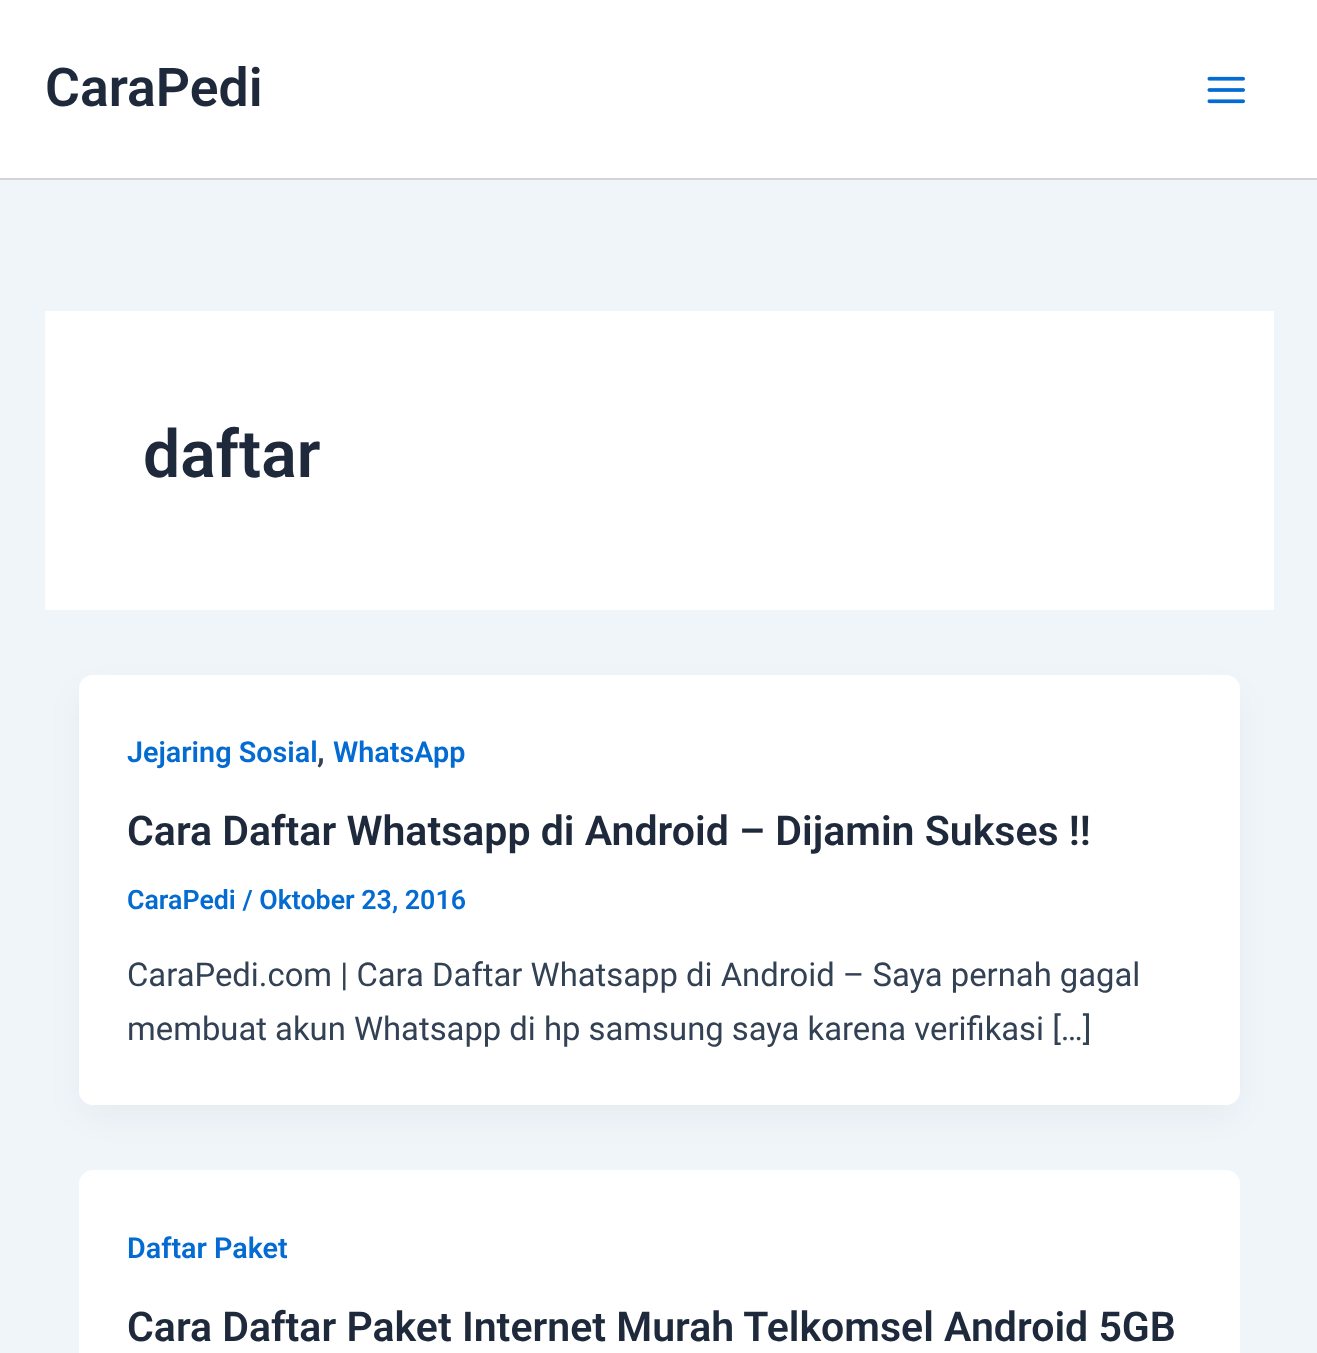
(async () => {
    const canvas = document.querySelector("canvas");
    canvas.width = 1317;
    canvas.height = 1353;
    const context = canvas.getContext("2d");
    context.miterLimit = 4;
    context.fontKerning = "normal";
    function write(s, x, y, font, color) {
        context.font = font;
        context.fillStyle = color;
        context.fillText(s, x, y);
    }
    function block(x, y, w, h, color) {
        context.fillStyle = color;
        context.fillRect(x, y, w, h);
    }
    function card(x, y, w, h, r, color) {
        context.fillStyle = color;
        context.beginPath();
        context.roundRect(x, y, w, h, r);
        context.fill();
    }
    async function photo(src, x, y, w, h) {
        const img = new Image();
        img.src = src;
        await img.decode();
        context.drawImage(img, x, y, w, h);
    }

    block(0, 0, 1317, 1353, "rgb(240, 245, 250)");
    block(0, 0, 1317, 178, "rgb(255, 255, 255)");
    block(0, 178, 1317, 2, "rgb(209, 213, 219)");
    write("CaraPedi", 45, 106, "600 53.5px Roboto", "rgb(30, 41, 59)");
    await photo("media/1.png", 1207, 76, 38, 28);
    block(45, 311, 1229, 299, "rgb(255, 255, 255)");
    write("daftar", 143, 477, "600 66px Roboto", "rgb(30, 41, 59)");
    context.fillStyle = "rgba(16, 24, 40, 0.05)";
    context.filter = "blur(17px)";
    context.beginPath();
    context.roundRect(83, 693, 1152, 421, 9);
    context.fill();
    context.filter = "none";
    card(79, 675, 1161, 430, 14, "rgb(255, 255, 255)");
    write("Jejaring Sosial", 127, 762, "600 28.75px Roboto", "rgb(4, 107, 210)");
    write(",", 317, 762, "600 32.8px Roboto", "rgb(51, 65, 85)");
    write("WhatsApp", 333, 762, "600 28.75px Roboto", "rgb(4, 107, 210)");
    write("Cara Daftar Whatsapp di Android – Dijamin Sukses !!", 127, 845, "600 41.05px Roboto", "rgb(30, 41, 59)");
    write("CaraPedi / Oktober 23, 2016", 127, 909, "600 26.75px Roboto", "rgb(4, 107, 210)");
    write("CaraPedi.com | Cara Daftar Whatsapp di Android – Saya pernah gagal", 127, 986, "32.8px Roboto", "rgb(51, 65, 85)");
    write("membuat akun Whatsapp di hp samsung saya karena verifikasi […]", 127, 1040, "32.8px Roboto", "rgb(51, 65, 85)");
    card(79, 1170, 1161, 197, 14, "rgb(255, 255, 255)");
    write("Daftar Paket", 127, 1258, "600 28.75px Roboto", "rgb(4, 107, 210)");
    write("Cara Daftar Paket Internet Murah Telkomsel Android 5GB", 127, 1341, "600 41.05px Roboto", "rgb(30, 41, 59)");
})();
